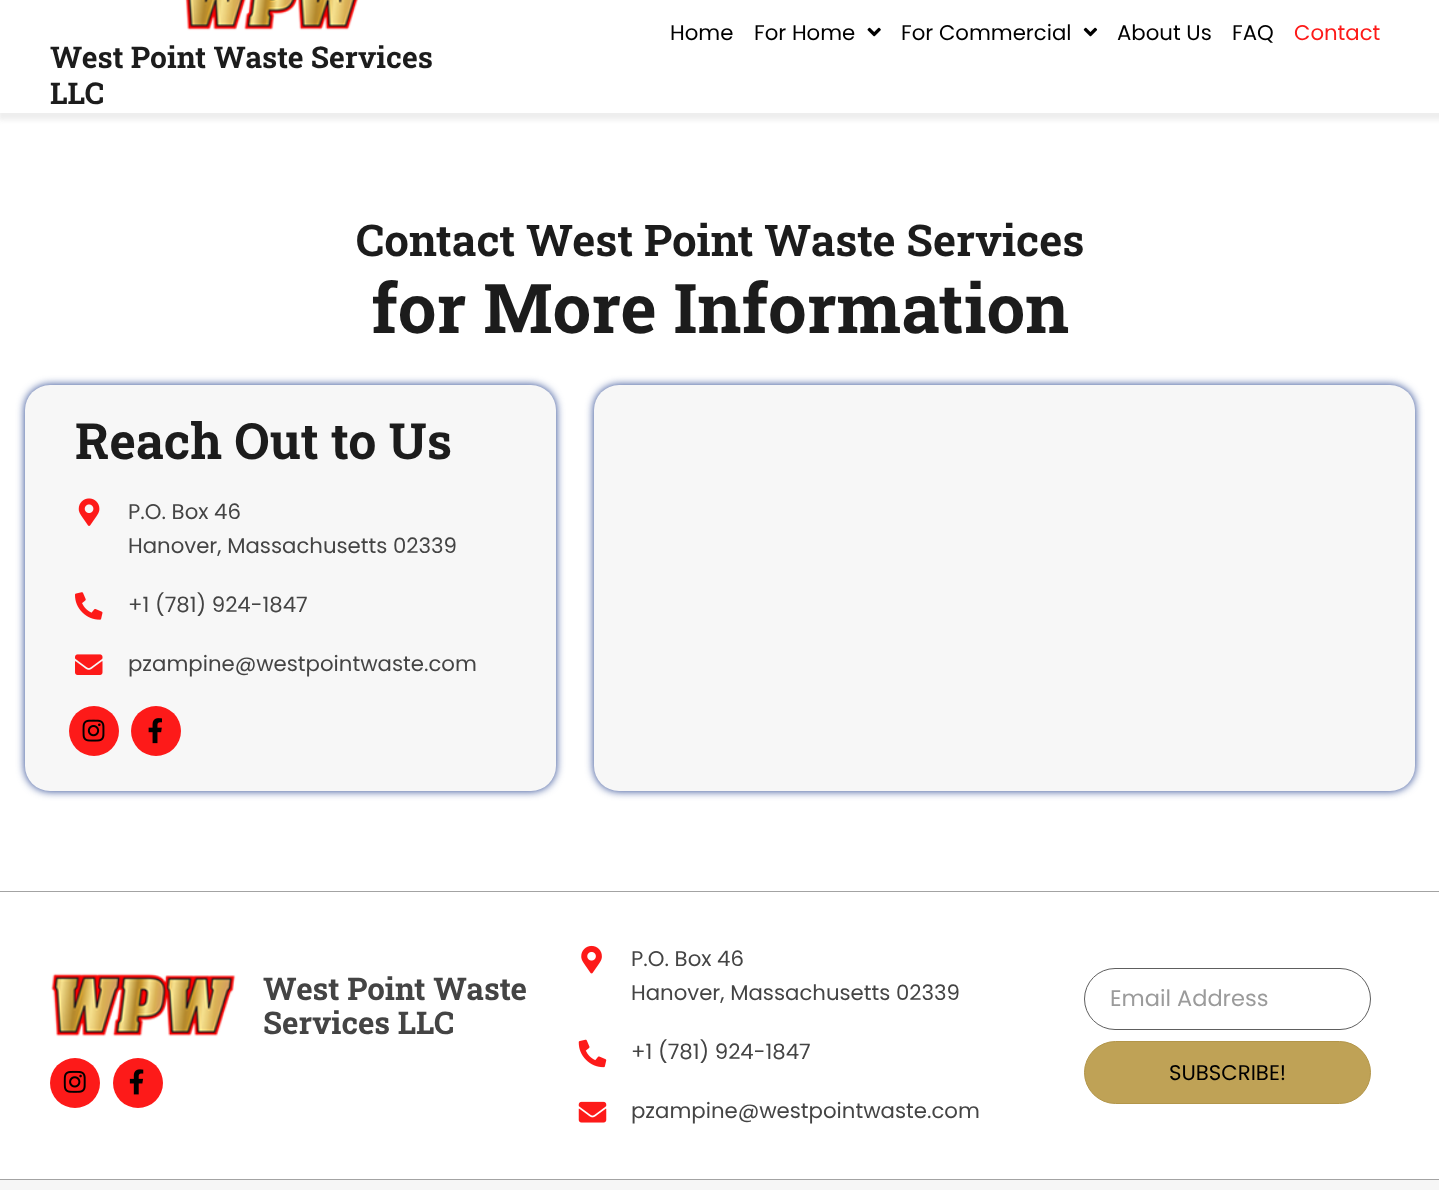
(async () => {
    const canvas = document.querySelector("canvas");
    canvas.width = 1439;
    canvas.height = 1190;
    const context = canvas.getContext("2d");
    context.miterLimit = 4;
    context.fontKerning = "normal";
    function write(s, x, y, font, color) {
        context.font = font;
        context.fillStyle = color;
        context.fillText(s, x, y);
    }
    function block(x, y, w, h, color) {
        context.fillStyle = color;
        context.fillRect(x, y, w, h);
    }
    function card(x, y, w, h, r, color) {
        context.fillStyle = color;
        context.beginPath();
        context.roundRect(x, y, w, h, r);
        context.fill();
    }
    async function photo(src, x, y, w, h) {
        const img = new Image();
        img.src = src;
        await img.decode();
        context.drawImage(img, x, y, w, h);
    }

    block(0, 0, 1439, 1190, "rgb(255, 255, 255)");
    context.save();
    context.beginPath();
    context.moveTo(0, 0);
    context.lineTo(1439, 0);
    context.lineTo(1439, 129);
    context.lineTo(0, 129);
    context.closePath();
    context.moveTo(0, -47);
    context.lineTo(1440, -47);
    context.lineTo(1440, 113);
    context.lineTo(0, 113);
    context.closePath();
    context.clip("evenodd");
    context.fillStyle = "rgba(224, 224, 224, 0.54)";
    context.filter = "blur(2.5px)";
    context.beginPath();
    context.rect(-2, -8, 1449, 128);
    context.fill();
    context.filter = "none";
    context.restore();
    write("Home", 670, 40, "21.25px Poppins", "rgb(0, 0, 0)");
    write("For Home", 754, 40, "21.25px Poppins", "rgb(0, 0, 0)");
    await photo("media/1.png", 867, 27, 14, 10);
    write("For Commercial", 901, 40, "21.25px Poppins", "rgb(0, 0, 0)");
    await photo("media/2.png", 1083, 27, 15, 10);
    write("About Us", 1117, 40, "21.25px Poppins", "rgb(0, 0, 0)");
    write("FAQ", 1232, 40, "21.25px Poppins", "rgb(0, 0, 0)");
    write("Contact", 1294, 40, "21.25px Poppins", "rgb(253, 26, 25)");
    await photo("media/3.png", 185, 0, 173, 31);
    write("West Point Waste Services", 50, 68, "bold 30px Roboto Slab", "rgb(28, 28, 28)");
    write("LLC", 50, 104, "bold 30px Roboto Slab", "rgb(28, 28, 28)");
    write("Contact West Point Waste Services", 356, 256, "bold 43.75px Roboto Slab", "rgb(28, 28, 28)");
    write("for More Information", 371, 333, "bold 68.75px Roboto Slab", "rgb(28, 28, 28)");
    context.fillStyle = "rgb(34, 63, 141)";
    context.filter = "blur(4.5px)";
    context.beginPath();
    context.roundRect(25, 385, 531, 406, 25);
    context.fill();
    context.filter = "none";
    card(25, 385, 531, 406, 25, "rgb(247, 247, 247)");
    write("Reach Out to Us", 75, 459, "bold 50px Roboto Slab", "rgb(28, 28, 28)");
    await photo("media/4.png", 78, 498, 22, 28);
    write("P.O. Box 46", 128, 519, "21.25px Poppins", "rgb(68, 68, 68)");
    write("Hanover, Massachusetts 02339", 128, 553, "21.25px Poppins", "rgb(68, 68, 68)");
    await photo("media/5.png", 75, 592, 28, 28);
    write("+1 (781) 924-1847", 128, 612, "21.25px Poppins", "rgb(68, 68, 68)");
    await photo("media/6.png", 75, 654, 28, 21);
    write("pzampine@westpointwaste.com", 128, 671, "21.25px Poppins", "rgb(68, 68, 68)");
    context.fillStyle = "rgb(253, 26, 25)";
    context.beginPath();
    context.arc(94, 731, 25, 0, Math.PI * 2);
    context.fill();
    await photo("media/7.png", 82, 719, 23, 23);
    context.beginPath();
    context.arc(156, 731, 25, 0, Math.PI * 2);
    context.fill();
    await photo("media/8.png", 148, 718, 14, 26);
    context.fillStyle = "rgb(34, 63, 141)";
    context.filter = "blur(4.5px)";
    context.beginPath();
    context.roundRect(594, 385, 821, 406, 25);
    context.fill();
    context.filter = "none";
    card(594, 385, 821, 406, 25, "rgb(247, 247, 247)");
    block(0, 891, 1439, 1, "rgb(163, 163, 163)");
    await photo("media/9.png", 51, 973, 185, 64);
    write("West Point Waste", 263, 1000, "bold 31.25px Roboto Slab", "rgb(68, 68, 68)");
    write("Services LLC", 263, 1034, "bold 31.25px Roboto Slab", "rgb(68, 68, 68)");
    context.fillStyle = "rgb(253, 26, 25)";
    context.beginPath();
    context.arc(75, 1083, 25, 0, Math.PI * 2);
    context.fill();
    await photo("media/10.png", 63, 1070, 23, 23);
    context.beginPath();
    context.arc(138, 1083, 25, 0, Math.PI * 2);
    context.fill();
    await photo("media/11.png", 129, 1069, 15, 26);
    await photo("media/12.png", 581, 945, 21, 29);
    write("P.O. Box 46", 631, 966, "21.25px Poppins", "rgb(68, 68, 68)");
    write("Hanover, Massachusetts 02339", 631, 1000, "21.25px Poppins", "rgb(68, 68, 68)");
    await photo("media/13.png", 578, 1039, 29, 29);
    write("+1 (781) 924-1847", 631, 1059, "21.25px Poppins", "rgb(68, 68, 68)");
    await photo("media/14.png", 578, 1101, 29, 22);
    write("pzampine@westpointwaste.com", 631, 1118, "21.25px Poppins", "rgb(68, 68, 68)");
    context.beginPath();
    context.roundRect(1084.5, 968.5, 286, 61, 30.5);
    context.strokeStyle = "rgb(94, 94, 94)";
    context.stroke();
    write("Email Address", 1110, 1006, "22.5px Poppins", "rgb(155, 155, 155)");
    context.fillStyle = "rgb(191, 162, 86)";
    context.beginPath();
    context.roundRect(1084.5, 1041.5, 286, 62, 31);
    context.fill();
    context.strokeStyle = "rgb(179, 150, 74)";
    context.stroke();
    write("SUBSCRIBE!", 1169, 1080, "21.25px Poppins", "rgb(0, 0, 0)");
    block(0, 1180, 1439, 10, "rgb(246, 246, 246)");
    block(0, 1179, 1439, 1, "rgb(163, 163, 163)");
})();
